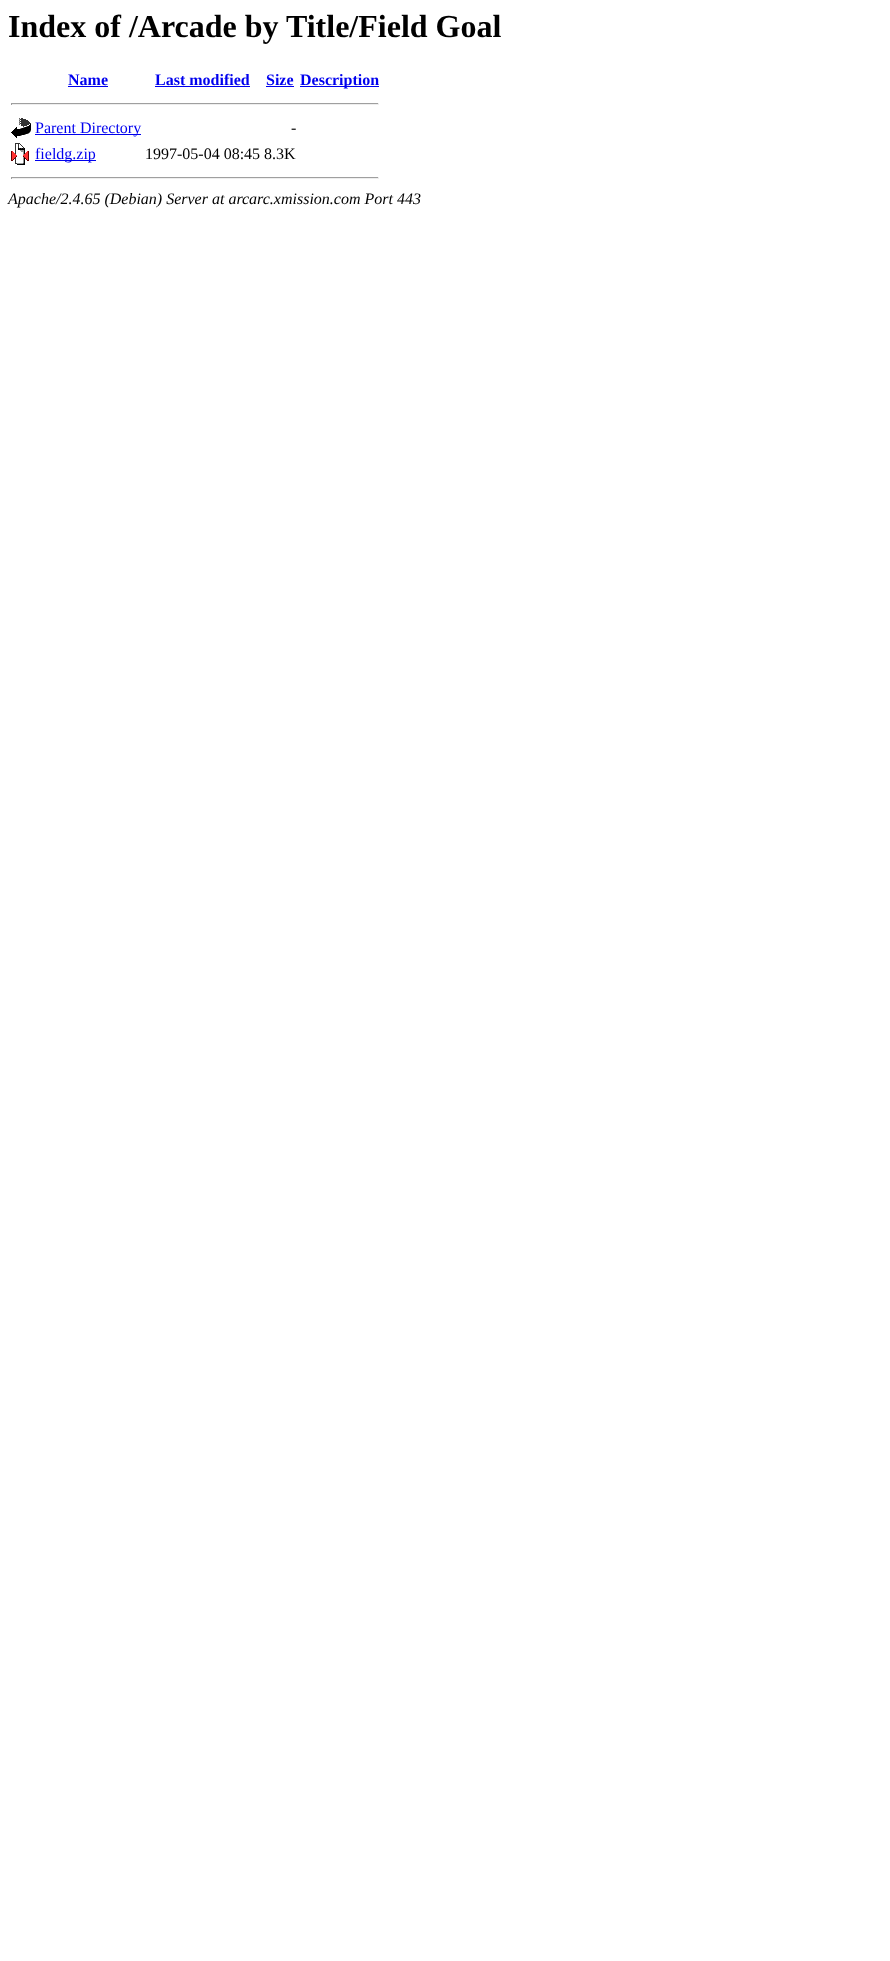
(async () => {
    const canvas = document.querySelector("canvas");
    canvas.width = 890;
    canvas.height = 1961;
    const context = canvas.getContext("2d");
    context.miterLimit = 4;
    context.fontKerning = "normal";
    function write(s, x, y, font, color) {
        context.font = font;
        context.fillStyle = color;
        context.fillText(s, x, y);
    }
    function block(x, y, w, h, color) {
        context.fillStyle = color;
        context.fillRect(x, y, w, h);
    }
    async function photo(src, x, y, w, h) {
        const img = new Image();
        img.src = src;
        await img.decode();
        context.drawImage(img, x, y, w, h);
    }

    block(0, 0, 890, 1961, "rgb(255, 255, 255)");
    write("Index of /Arcade by Title/Field Goal", 8, 37, "bold 32px Liberation Serif", "rgb(0, 0, 0)");
    write("Name", 68, 85, "bold 16px Liberation Serif", "rgb(0, 0, 238)");
    block(68, 86, 40, 1, "rgb(0, 0, 238)");
    write("Last modified", 155, 85, "bold 16px Liberation Serif", "rgb(0, 0, 238)");
    block(155, 86, 95, 1, "rgb(0, 0, 238)");
    write("Size", 266, 85, "bold 16px Liberation Serif", "rgb(0, 0, 238)");
    block(266, 86, 28, 1, "rgb(0, 0, 238)");
    block(300, 86, 79, 1, "rgb(0, 0, 238)");
    write("Description", 300, 85, "bold 16px Liberation Serif", "rgb(0, 0, 238)");
    block(11, 103, 368, 1, "rgb(159, 159, 159)");
    block(378, 103, 1, 2, "rgb(238, 238, 238)");
    block(11, 104, 368, 1, "rgb(238, 238, 238)");
    block(11, 103, 1, 2, "rgb(159, 159, 159)");
    await photo("media/1.png", 11, 118, 20, 20);
    block(35, 134, 106, 1, "rgb(0, 0, 238)");
    write("Parent Directory", 35, 133, "16px Liberation Serif", "rgb(0, 0, 238)");
    write("-", 291, 133, "16px Liberation Serif", "rgb(0, 0, 0)");
    await photo("media/2.png", 11, 143, 18, 22);
    block(35, 160, 61, 1, "rgb(0, 0, 238)");
    write("fieldg.zip", 35, 159, "16px Liberation Serif", "rgb(0, 0, 238)");
    write("1997-05-04 08:45 8.3K", 145, 159, "16px Liberation Serif", "rgb(0, 0, 0)");
    block(11, 177, 368, 1, "rgb(159, 159, 159)");
    block(378, 177, 1, 2, "rgb(238, 238, 238)");
    block(11, 178, 368, 1, "rgb(238, 238, 238)");
    block(11, 177, 1, 2, "rgb(159, 159, 159)");
    write("Apache/2.4.65 (Debian) Server at arcarc.xmission.com Port 443", 8, 204, "italic 16px Liberation Serif", "rgb(0, 0, 0)");
})();
